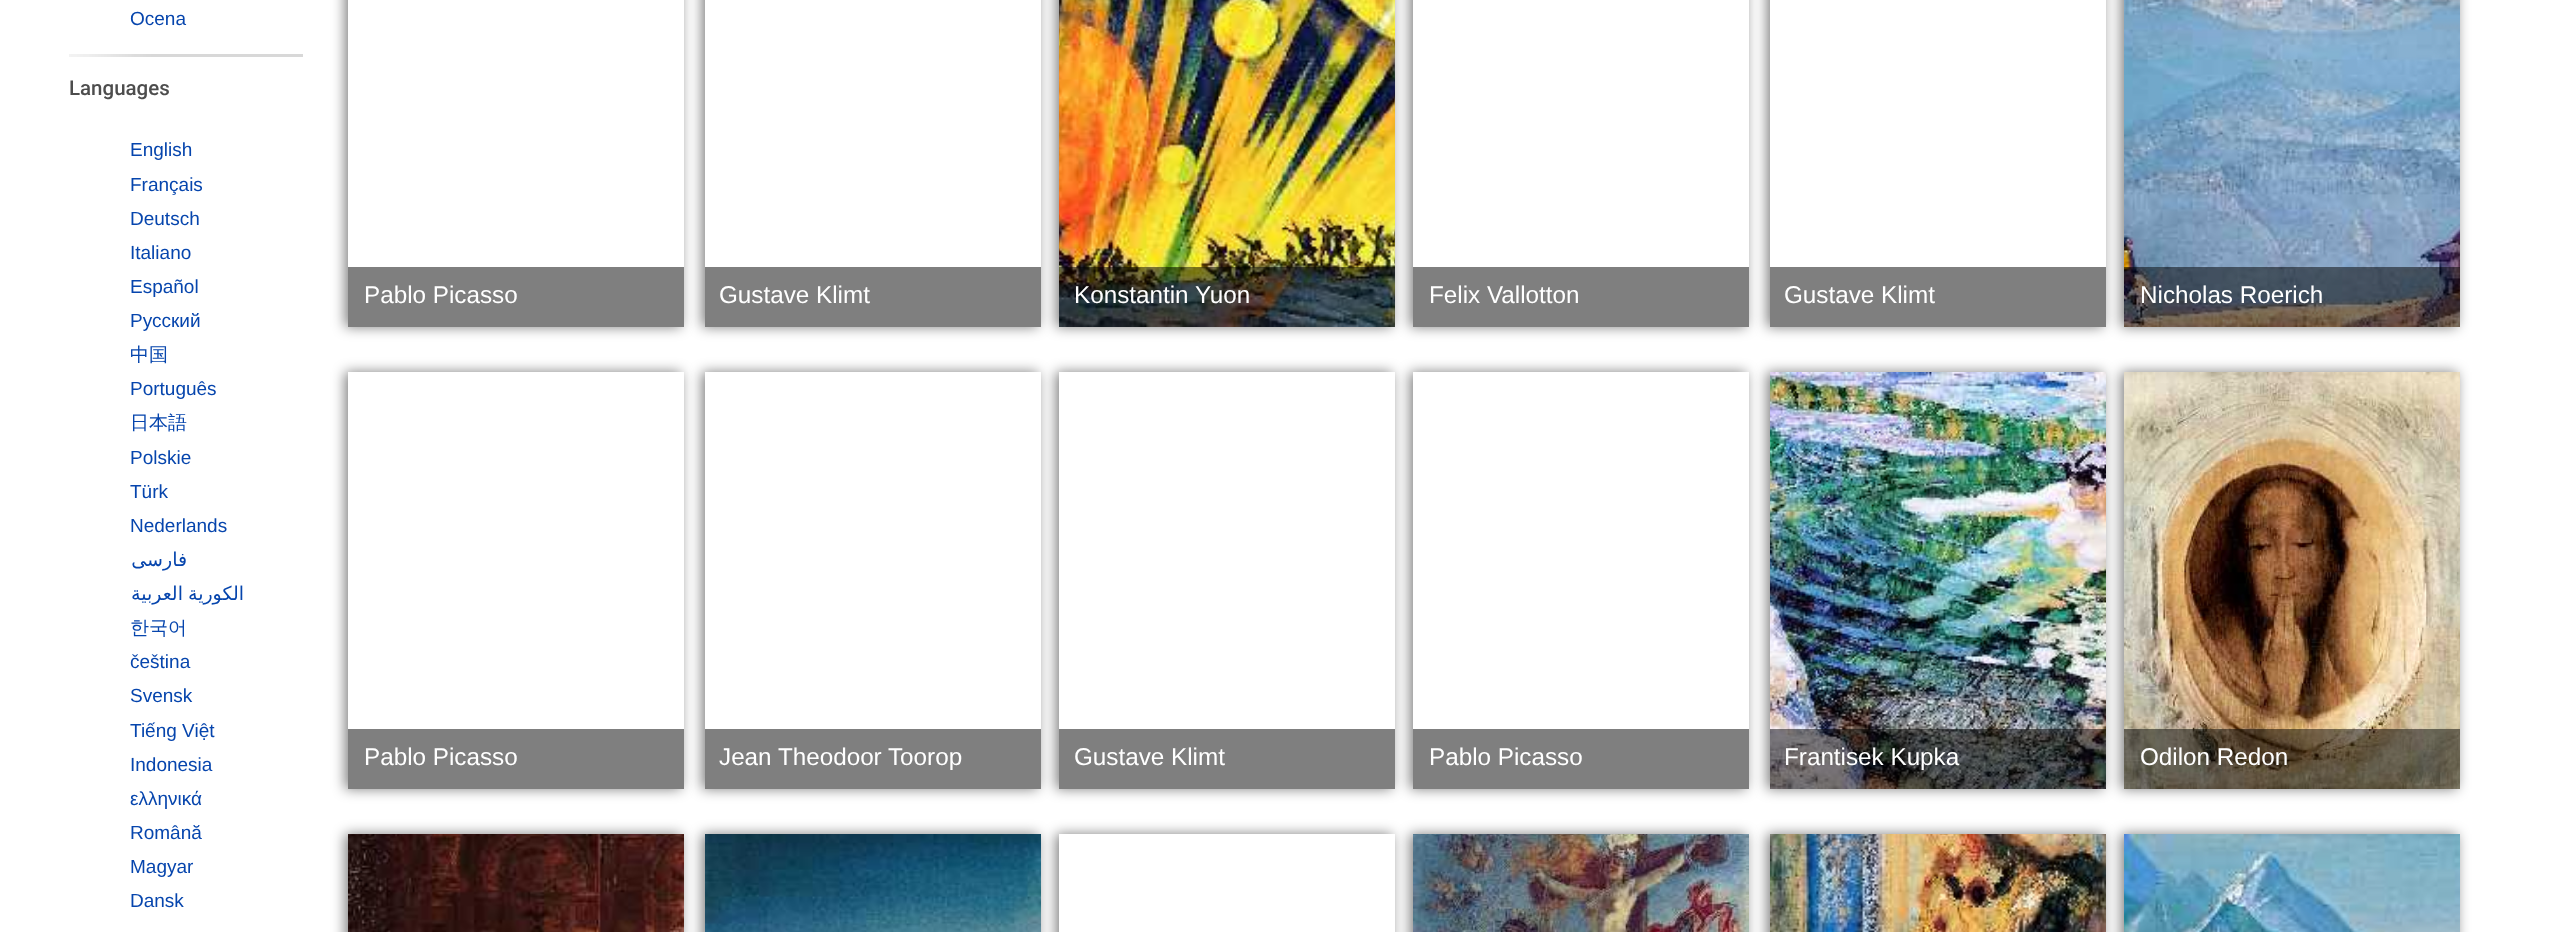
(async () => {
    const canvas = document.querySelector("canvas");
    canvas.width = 2549;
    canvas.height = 932;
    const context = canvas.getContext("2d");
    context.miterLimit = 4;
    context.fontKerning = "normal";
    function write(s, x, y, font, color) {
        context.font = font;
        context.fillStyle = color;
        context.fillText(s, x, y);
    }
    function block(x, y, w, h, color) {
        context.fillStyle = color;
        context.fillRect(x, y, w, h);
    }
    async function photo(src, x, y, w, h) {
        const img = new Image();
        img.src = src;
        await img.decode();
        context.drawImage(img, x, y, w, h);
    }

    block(0, 0, 2549, 932, "rgb(255, 255, 255)");
    write("Ocena", 130, 25, "19px Liberation Sans", "rgb(6, 69, 173)");
    await photo("media/1.png", 69, 54, 234, 3);
    write("Languages", 69, 95, "500 20.5px Roboto", "rgb(77, 77, 77)");
    write("English", 130, 156, "19px Liberation Sans", "rgb(6, 69, 173)");
    write("Français", 130, 191, "19px Liberation Sans", "rgb(6, 69, 173)");
    write("Deutsch", 130, 225, "19px Liberation Sans", "rgb(6, 69, 173)");
    write("Italiano", 130, 259, "19px Liberation Sans", "rgb(6, 69, 173)");
    write("Español", 130, 293, "19px Liberation Sans", "rgb(6, 69, 173)");
    write("Русский", 130, 327, "19px Liberation Sans", "rgb(6, 69, 173)");
    write("中国", 130, 361, "500 19px WenQuanYi Zen Hei", "rgb(6, 69, 173)");
    write("Português", 130, 395, "19px Liberation Sans", "rgb(6, 69, 173)");
    write("日本語", 130, 429, "500 19px WenQuanYi Zen Hei", "rgb(6, 69, 173)");
    write("Polskie", 130, 464, "19px Liberation Sans", "rgb(6, 69, 173)");
    write("Türk", 130, 498, "19px Liberation Sans", "rgb(6, 69, 173)");
    write("Nederlands", 130, 532, "19px Liberation Sans", "rgb(6, 69, 173)");
    context.direction = "rtl";
    write("فارسی", 187, 566, "19px DejaVu Sans", "rgb(6, 69, 173)");
    context.wordSpacing = "-1px";
    write("الكورية العربية", 244, 600, "19px DejaVu Sans", "rgb(6, 69, 173)");
    context.wordSpacing = "0px";
    context.direction = "ltr";
    write("한국어", 130, 634, "500 19px WenQuanYi Zen Hei", "rgb(6, 69, 173)");
    write("čeština", 130, 668, "19px Liberation Sans", "rgb(6, 69, 173)");
    write("Svensk", 130, 702, "19px Liberation Sans", "rgb(6, 69, 173)");
    write("Tiếng Việt", 130, 737, "19px Liberation Sans", "rgb(6, 69, 173)");
    write("Indonesia", 130, 771, "19px Liberation Sans", "rgb(6, 69, 173)");
    write("ελληνικά", 130, 805, "19px Liberation Sans", "rgb(6, 69, 173)");
    write("Română", 130, 839, "19px Liberation Sans", "rgb(6, 69, 173)");
    write("Magyar", 130, 873, "19px Liberation Sans", "rgb(6, 69, 173)");
    write("Dansk", 130, 907, "19px Liberation Sans", "rgb(6, 69, 173)");
    context.save();
    context.beginPath();
    context.moveTo(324, 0);
    context.lineTo(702, 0);
    context.lineTo(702, 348);
    context.lineTo(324, 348);
    context.closePath();
    context.moveTo(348, -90);
    context.lineTo(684, -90);
    context.lineTo(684, 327);
    context.lineTo(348, 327);
    context.closePath();
    context.clip("evenodd");
    context.fillStyle = "rgba(0, 0, 0, 0.5)";
    context.filter = "blur(6.5px)";
    context.beginPath();
    context.rect(345, -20, 336, 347);
    context.fill();
    context.filter = "none";
    context.restore();
    context.save();
    context.beginPath();
    context.moveTo(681, 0);
    context.lineTo(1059, 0);
    context.lineTo(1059, 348);
    context.lineTo(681, 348);
    context.closePath();
    context.moveTo(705, -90);
    context.lineTo(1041, -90);
    context.lineTo(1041, 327);
    context.lineTo(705, 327);
    context.closePath();
    context.clip("evenodd");
    context.fillStyle = "rgba(0, 0, 0, 0.5)";
    context.filter = "blur(6.5px)";
    context.beginPath();
    context.rect(702, -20, 336, 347);
    context.fill();
    context.filter = "none";
    context.restore();
    block(348, 267, 336, 60, "rgb(127, 127, 127)");
    write("Pablo Picasso", 364, 303, "24.25px Liberation Sans", "rgb(255, 255, 255)");
    context.fillStyle = "rgba(0, 0, 0, 0.5)";
    context.filter = "blur(6.5px)";
    context.beginPath();
    context.rect(1056, -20, 336, 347);
    context.fill();
    context.filter = "none";
    block(705, 267, 336, 60, "rgb(127, 127, 127)");
    write("Gustave Klimt", 719, 303, "24.25px Liberation Sans", "rgb(255, 255, 255)");
    context.save();
    context.beginPath();
    context.moveTo(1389, 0);
    context.lineTo(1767, 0);
    context.lineTo(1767, 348);
    context.lineTo(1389, 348);
    context.closePath();
    context.moveTo(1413, -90);
    context.lineTo(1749, -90);
    context.lineTo(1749, 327);
    context.lineTo(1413, 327);
    context.closePath();
    context.clip("evenodd");
    context.fillStyle = "rgba(0, 0, 0, 0.5)";
    context.filter = "blur(6.5px)";
    context.beginPath();
    context.rect(1410, -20, 336, 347);
    context.fill();
    context.filter = "none";
    context.restore();
    await photo("media/2.png", 1059, 0, 336, 327);
    block(1059, 267, 336, 60, "rgba(0, 0, 0, 0.5)");
    write("Konstantin Yuon", 1074, 303, "24.25px Liberation Sans", "rgb(255, 255, 255)");
    context.save();
    context.beginPath();
    context.moveTo(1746, 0);
    context.lineTo(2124, 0);
    context.lineTo(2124, 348);
    context.lineTo(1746, 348);
    context.closePath();
    context.moveTo(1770, -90);
    context.lineTo(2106, -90);
    context.lineTo(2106, 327);
    context.lineTo(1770, 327);
    context.closePath();
    context.clip("evenodd");
    context.fillStyle = "rgba(0, 0, 0, 0.5)";
    context.filter = "blur(6.5px)";
    context.beginPath();
    context.rect(1767, -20, 336, 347);
    context.fill();
    context.filter = "none";
    context.restore();
    block(1413, 267, 336, 60, "rgb(127, 127, 127)");
    write("Felix Vallotton", 1429, 303, "24.25px Liberation Sans", "rgb(255, 255, 255)");
    context.fillStyle = "rgba(0, 0, 0, 0.5)";
    context.filter = "blur(6.5px)";
    context.beginPath();
    context.rect(2121, -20, 336, 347);
    context.fill();
    context.filter = "none";
    block(1770, 267, 336, 60, "rgb(127, 127, 127)");
    write("Gustave Klimt", 1784, 303, "24.25px Liberation Sans", "rgb(255, 255, 255)");
    await photo("media/3.png", 2124, 0, 336, 327);
    block(2124, 267, 336, 60, "rgba(0, 0, 0, 0.5)");
    write("Nicholas Roerich", 2140, 303, "24.25px Liberation Sans", "rgb(255, 255, 255)");
    context.save();
    context.beginPath();
    context.moveTo(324, 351);
    context.lineTo(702, 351);
    context.lineTo(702, 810);
    context.lineTo(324, 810);
    context.closePath();
    context.moveTo(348, 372);
    context.lineTo(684, 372);
    context.lineTo(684, 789);
    context.lineTo(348, 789);
    context.closePath();
    context.clip("evenodd");
    context.fillStyle = "rgba(0, 0, 0, 0.5)";
    context.filter = "blur(6.5px)";
    context.beginPath();
    context.rect(345, 372, 336, 417);
    context.fill();
    context.filter = "none";
    context.restore();
    context.save();
    context.beginPath();
    context.moveTo(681, 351);
    context.lineTo(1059, 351);
    context.lineTo(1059, 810);
    context.lineTo(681, 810);
    context.closePath();
    context.moveTo(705, 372);
    context.lineTo(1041, 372);
    context.lineTo(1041, 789);
    context.lineTo(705, 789);
    context.closePath();
    context.clip("evenodd");
    context.fillStyle = "rgba(0, 0, 0, 0.5)";
    context.filter = "blur(6.5px)";
    context.beginPath();
    context.rect(702, 372, 336, 417);
    context.fill();
    context.filter = "none";
    context.restore();
    block(348, 729, 336, 60, "rgb(127, 127, 127)");
    write("Pablo Picasso", 364, 765, "24.25px Liberation Sans", "rgb(255, 255, 255)");
    context.save();
    context.beginPath();
    context.moveTo(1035, 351);
    context.lineTo(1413, 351);
    context.lineTo(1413, 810);
    context.lineTo(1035, 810);
    context.closePath();
    context.moveTo(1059, 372);
    context.lineTo(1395, 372);
    context.lineTo(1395, 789);
    context.lineTo(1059, 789);
    context.closePath();
    context.clip("evenodd");
    context.fillStyle = "rgba(0, 0, 0, 0.5)";
    context.filter = "blur(6.5px)";
    context.beginPath();
    context.rect(1056, 372, 336, 417);
    context.fill();
    context.filter = "none";
    context.restore();
    block(705, 729, 336, 60, "rgb(127, 127, 127)");
    write("Jean Theodoor Toorop", 719, 765, "24.25px Liberation Sans", "rgb(255, 255, 255)");
    context.save();
    context.beginPath();
    context.moveTo(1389, 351);
    context.lineTo(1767, 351);
    context.lineTo(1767, 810);
    context.lineTo(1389, 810);
    context.closePath();
    context.moveTo(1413, 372);
    context.lineTo(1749, 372);
    context.lineTo(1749, 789);
    context.lineTo(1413, 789);
    context.closePath();
    context.clip("evenodd");
    context.fillStyle = "rgba(0, 0, 0, 0.5)";
    context.filter = "blur(6.5px)";
    context.beginPath();
    context.rect(1410, 372, 336, 417);
    context.fill();
    context.filter = "none";
    context.restore();
    block(1059, 729, 336, 60, "rgb(127, 127, 127)");
    write("Gustave Klimt", 1074, 765, "24.25px Liberation Sans", "rgb(255, 255, 255)");
    context.fillStyle = "rgba(0, 0, 0, 0.5)";
    context.filter = "blur(6.5px)";
    context.beginPath();
    context.rect(1767, 372, 336, 417);
    context.fill();
    context.filter = "none";
    block(1413, 729, 336, 60, "rgb(127, 127, 127)");
    write("Pablo Picasso", 1429, 765, "24.25px Liberation Sans", "rgb(255, 255, 255)");
    context.fillStyle = "rgba(0, 0, 0, 0.5)";
    context.filter = "blur(6.5px)";
    context.beginPath();
    context.rect(2121, 372, 336, 417);
    context.fill();
    context.filter = "none";
    await photo("media/4.png", 1770, 372, 336, 417);
    block(1770, 729, 336, 60, "rgba(0, 0, 0, 0.5)");
    write("Frantisek Kupka", 1784, 765, "24.25px Liberation Sans", "rgb(255, 255, 255)");
    await photo("media/5.png", 2124, 372, 336, 417);
    block(2124, 729, 336, 60, "rgba(0, 0, 0, 0.5)");
    write("Odilon Redon", 2140, 765, "24.25px Liberation Sans", "rgb(255, 255, 255)");
    context.fillStyle = "rgba(0, 0, 0, 0.5)";
    context.filter = "blur(6.5px)";
    context.beginPath();
    context.rect(345, 834, 336, 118);
    context.fill();
    context.filter = "none";
    context.filter = "blur(6.5px)";
    context.beginPath();
    context.rect(702, 834, 336, 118);
    context.fill();
    context.filter = "none";
    await photo("media/6.png", 348, 834, 336, 98);
    context.save();
    context.beginPath();
    context.moveTo(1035, 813);
    context.lineTo(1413, 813);
    context.lineTo(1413, 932);
    context.lineTo(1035, 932);
    context.closePath();
    context.moveTo(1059, 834);
    context.lineTo(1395, 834);
    context.lineTo(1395, 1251);
    context.lineTo(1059, 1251);
    context.closePath();
    context.clip("evenodd");
    context.filter = "blur(6.5px)";
    context.beginPath();
    context.rect(1056, 834, 336, 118);
    context.fill();
    context.filter = "none";
    context.restore();
    await photo("media/7.png", 705, 834, 336, 98);
    context.filter = "blur(6.5px)";
    context.beginPath();
    context.rect(1410, 834, 336, 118);
    context.fill();
    context.filter = "none";
    context.filter = "blur(6.5px)";
    context.beginPath();
    context.rect(1767, 834, 336, 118);
    context.fill();
    context.filter = "none";
    await photo("media/8.png", 1413, 834, 336, 98);
    context.filter = "blur(6.5px)";
    context.beginPath();
    context.rect(2121, 834, 336, 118);
    context.fill();
    context.filter = "none";
    await photo("media/9.png", 1770, 834, 336, 98);
    await photo("media/10.png", 2124, 834, 336, 98);
})();
